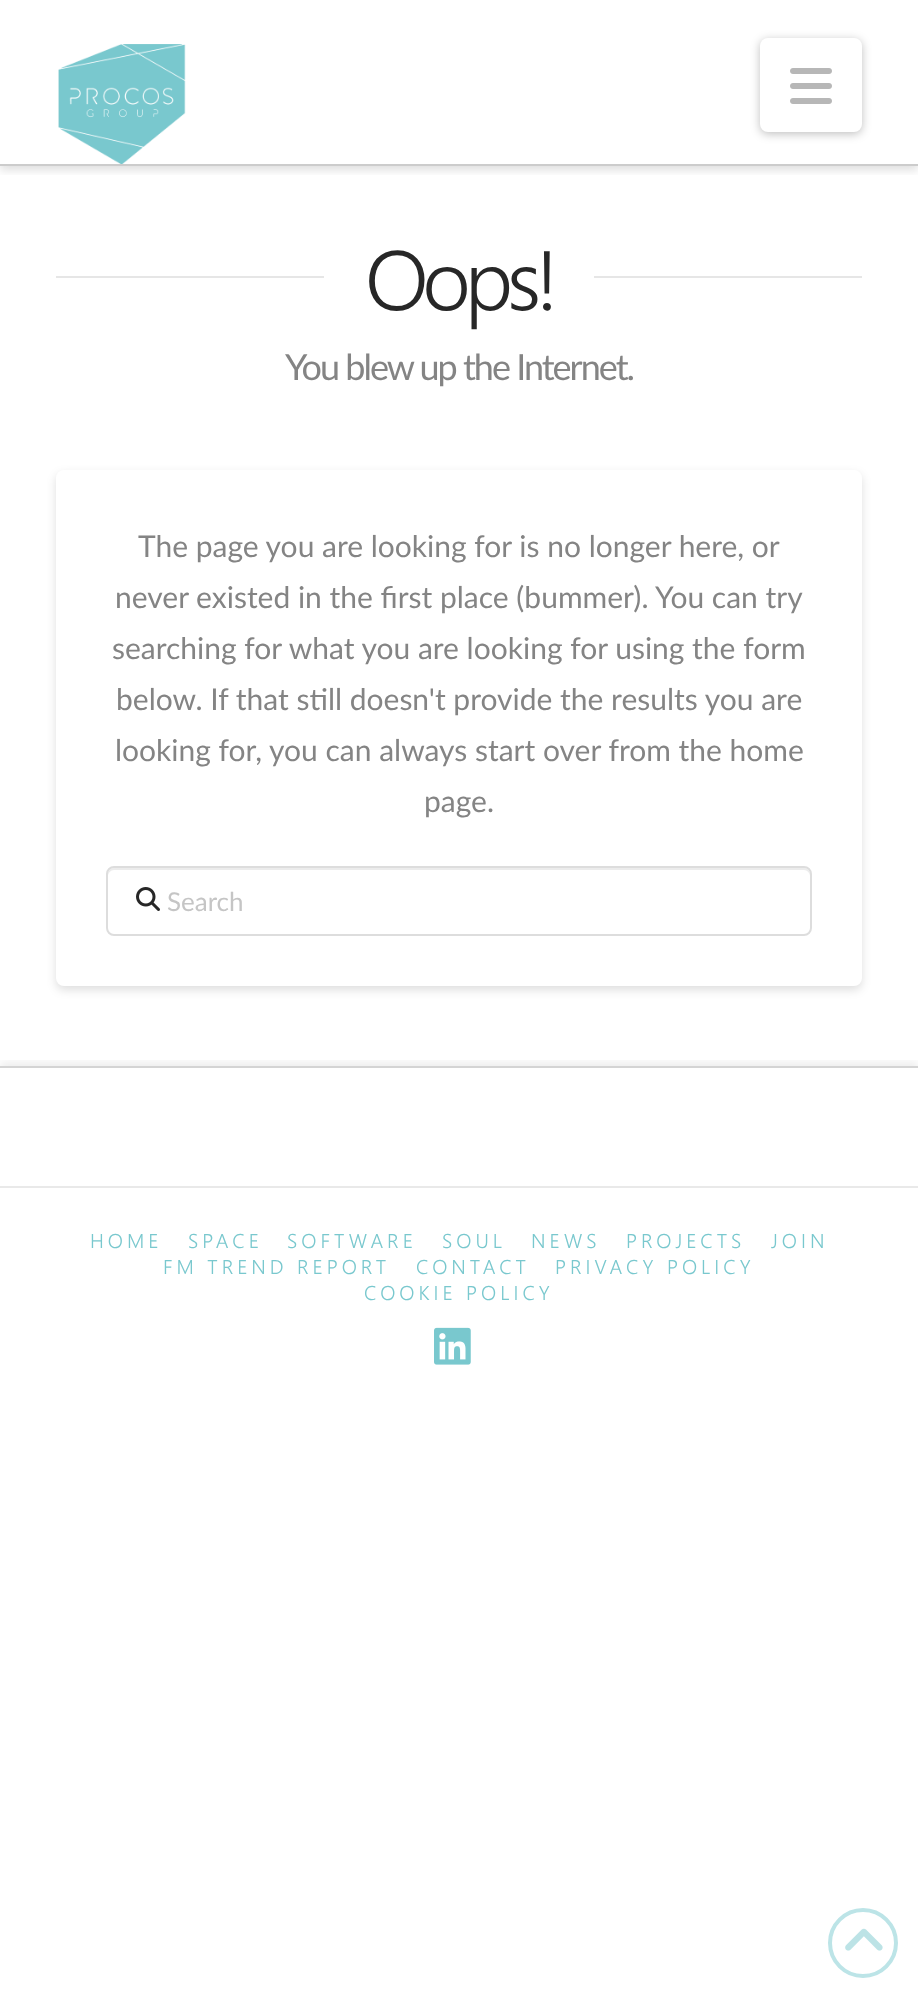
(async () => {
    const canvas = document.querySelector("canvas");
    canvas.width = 918;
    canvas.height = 1997;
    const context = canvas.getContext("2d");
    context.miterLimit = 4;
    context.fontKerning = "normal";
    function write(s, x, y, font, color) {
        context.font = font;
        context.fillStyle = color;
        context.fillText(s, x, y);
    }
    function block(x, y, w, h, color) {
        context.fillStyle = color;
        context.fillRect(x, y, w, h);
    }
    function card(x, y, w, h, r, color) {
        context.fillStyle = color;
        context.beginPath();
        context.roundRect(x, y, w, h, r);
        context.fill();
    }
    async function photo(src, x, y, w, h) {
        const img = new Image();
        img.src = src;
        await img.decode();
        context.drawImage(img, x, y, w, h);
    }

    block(0, 0, 918, 1997, "rgb(255, 255, 255)");
    context.save();
    context.beginPath();
    context.rect(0, 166, 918, 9);
    context.clip();
    context.fillStyle = "rgba(0, 0, 0, 0.13)";
    context.filter = "blur(5px)";
    context.beginPath();
    context.rect(0, 4, 918, 166);
    context.fill();
    context.filter = "none";
    context.restore();
    block(0, 164, 918, 2, "rgb(204, 204, 204)");
    await photo("media/1.png", 58, 44, 128, 120);
    context.fillStyle = "rgba(0, 0, 0, 0.25)";
    context.filter = "blur(5px)";
    context.beginPath();
    context.roundRect(760, 40, 102, 94, 8);
    context.fill();
    context.filter = "none";
    card(760, 38, 102, 94, 8, "rgb(255, 255, 255)");
    await photo("media/2.png", 790, 68, 42, 36);
    block(56, 276, 268, 2, "rgb(230, 230, 230)");
    context.letterSpacing = "-6px";
    write("Oops!", 365, 310, "300 84px Segoe UI", "rgb(39, 39, 39)");
    block(594, 276, 268, 2, "rgb(230, 230, 230)");
    context.letterSpacing = "-2px";
    write("You blew up the Internet.", 285, 380, "36px Lato", "rgb(132, 132, 132)");
    context.fillStyle = "rgba(0, 0, 0, 0.13)";
    context.filter = "blur(5px)";
    context.beginPath();
    context.roundRect(56, 474, 806, 516, 8);
    context.fill();
    context.filter = "none";
    card(56, 470, 806, 516, 8, "rgb(255, 255, 255)");
    context.letterSpacing = "0px";
    write("The page you are looking for is no longer here, or", 138, 557, "30px Lato", "rgb(132, 132, 132)");
    write("never existed in the first place (bummer). You can try", 115, 608, "30px Lato", "rgb(132, 132, 132)");
    write("searching for what you are looking for using the form", 112, 659, "30px Lato", "rgb(132, 132, 132)");
    write("below. If that still doesn't provide the results you are", 116, 710, "30px Lato", "rgb(132, 132, 132)");
    write("looking for, you can always start over from the home", 115, 761, "30px Lato", "rgb(132, 132, 132)");
    write("page.", 424, 812, "30px Lato", "rgb(132, 132, 132)");
    context.fillStyle = "rgb(236, 236, 236)";
    context.beginPath();
    context.moveTo(114, 870);
    context.lineTo(804, 870);
    context.bezierCurveTo(807, 870, 810, 873, 810, 876);
    context.lineTo(810, 874);
    context.bezierCurveTo(810, 871, 807, 868, 804, 868);
    context.lineTo(114, 868);
    context.bezierCurveTo(111, 868, 108, 871, 108, 874);
    context.lineTo(108, 876);
    context.bezierCurveTo(108, 873, 111, 870, 114, 870);
    context.closePath();
    context.fill();
    context.beginPath();
    context.roundRect(107, 867, 704, 68, 7);
    context.strokeStyle = "rgb(221, 221, 221)";
    context.lineWidth = 2;
    context.stroke();
    await photo("media/3.png", 136, 887, 24, 24);
    write("Search", 167, 911, "26px Lato", "rgb(197, 197, 197)");
    context.save();
    context.beginPath();
    context.rect(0, 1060, 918, 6);
    context.clip();
    context.fillStyle = "rgba(0, 0, 0, 0.07)";
    context.filter = "blur(4px)";
    context.beginPath();
    context.rect(0, 1062, 918, 120);
    context.fill();
    context.filter = "none";
    context.restore();
    block(0, 1066, 918, 2, "rgb(212, 212, 212)");
    block(0, 1186, 918, 2, "rgb(233, 233, 233)");
    context.letterSpacing = "4px";
    write("HOME", 90, 1248, "300 20px Segoe UI", "rgb(121, 200, 206)");
    write("SPACE", 188, 1248, "300 20px Segoe UI", "rgb(121, 200, 206)");
    write("SOFTWARE", 287, 1248, "300 20px Segoe UI", "rgb(121, 200, 206)");
    write("SOUL", 442, 1248, "300 20px Segoe UI", "rgb(121, 200, 206)");
    write("NEWS", 531, 1248, "300 20px Segoe UI", "rgb(121, 200, 206)");
    write("PROJECTS", 626, 1248, "300 20px Segoe UI", "rgb(121, 200, 206)");
    write("JOIN", 771, 1248, "300 20px Segoe UI", "rgb(121, 200, 206)");
    write("FM TREND REPORT", 163, 1274, "300 20px Segoe UI", "rgb(121, 200, 206)");
    write("CONTACT", 416, 1274, "300 20px Segoe UI", "rgb(121, 200, 206)");
    write("PRIVACY POLICY", 555, 1274, "300 20px Segoe UI", "rgb(121, 200, 206)");
    write("COOKIE POLICY", 364, 1300, "300 20px Segoe UI", "rgb(121, 200, 206)");
    await photo("media/4.png", 434, 1327, 37, 38);
    context.beginPath();
    context.arc(863, 1943, 33, 0, Math.PI * 2);
    context.strokeStyle = "rgb(188, 228, 231)";
    context.lineWidth = 4;
    context.stroke();
    await photo("media/5.png", 845, 1928, 38, 23);
})();
